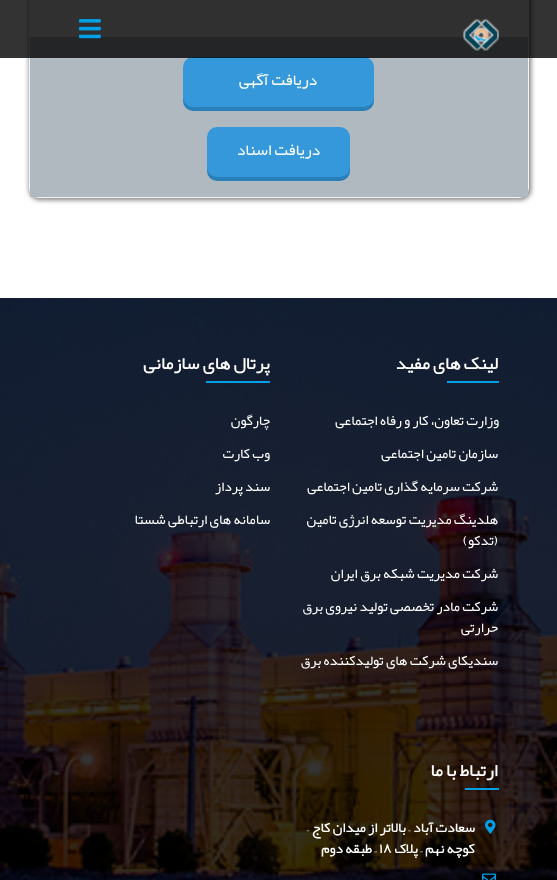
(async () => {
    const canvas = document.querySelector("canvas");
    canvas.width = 557;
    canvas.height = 880;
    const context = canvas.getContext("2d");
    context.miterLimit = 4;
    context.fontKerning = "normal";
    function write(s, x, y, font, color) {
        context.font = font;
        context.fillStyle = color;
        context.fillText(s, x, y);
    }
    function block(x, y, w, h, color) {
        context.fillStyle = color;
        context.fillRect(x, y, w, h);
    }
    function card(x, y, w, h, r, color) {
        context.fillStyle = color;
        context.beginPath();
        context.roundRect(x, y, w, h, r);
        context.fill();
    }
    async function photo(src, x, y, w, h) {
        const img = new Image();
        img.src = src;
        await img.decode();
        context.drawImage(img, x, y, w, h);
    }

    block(0, 0, 557, 880, "rgb(255, 255, 255)");
    context.fillStyle = "rgba(0, 0, 0, 0.5)";
    context.filter = "blur(2.5px)";
    context.beginPath();
    context.roundRect(29, -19, 502, 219, 11);
    context.fill();
    context.filter = "none";
    context.beginPath();
    context.roundRect(29.5, -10.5, 499, 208, 9.5);
    context.strokeStyle = "rgb(243, 243, 243)";
    context.stroke();
    block(30, 0, 498, 37, "rgb(237, 237, 237)");
    block(30, 37, 498, 160, "rgb(176, 184, 192)");
    context.fillStyle = "rgb(41, 128, 185)";
    context.filter = "blur(0.5px)";
    context.beginPath();
    context.roundRect(183, 61, 191, 50, 10);
    context.fill();
    context.filter = "none";
    card(183, 57, 191, 50, 10, "rgb(52, 152, 219)");
    block(0, 0, 557, 58, "rgba(0, 0, 0, 0.8)");
    await photo("media/1.png", 462, 18, 37, 33);
    await photo("media/2.png", 79, 19, 22, 20);
    context.direction = "rtl";
    write("دریافت آگهی", 317, 85, "16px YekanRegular", "rgb(255, 255, 255)");
    context.fillStyle = "rgb(41, 128, 185)";
    context.filter = "blur(0.5px)";
    context.beginPath();
    context.roundRect(207, 131, 143, 50, 10);
    context.fill();
    context.filter = "none";
    card(207, 127, 143, 50, 10, "rgb(52, 152, 219)");
    write("دریافت اسناد", 320, 155, "16px YekanRegular", "rgb(255, 255, 255)");
    await photo("media/3.png", 0, 298, 557, 582);
    write("لینک های مفید", 498, 369, "bold 18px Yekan", "rgb(255, 255, 255)");
    block(447, 381, 52, 2, "rgb(0, 160, 230)");
    write("وزارت تعاون، کار و رفاه اجتماعی", 499, 425, "14px YekanRegular", "rgb(255, 255, 255)");
    write("سازمان تامین اجتماعی", 498, 458, "14px YekanRegular", "rgb(255, 255, 255)");
    write("شرکت سرمایه گذاری تامین اجتماعی", 498, 491, "14px YekanRegular", "rgb(255, 255, 255)");
    write("هلدینگ مدیریت توسعه انرژی تامین", 498, 524, "14px YekanRegular", "rgb(255, 255, 255)");
    write("(تدکو)", 498, 545, "14px YekanRegular", "rgb(255, 255, 255)");
    write("شرکت مدیریت شبکه برق ایران", 498, 578, "14px YekanRegular", "rgb(255, 255, 255)");
    write("شرکت مادر تخصصی تولید نیروی برق", 498, 611, "14px YekanRegular", "rgb(255, 255, 255)");
    write("حرارتی", 498, 632, "14px YekanRegular", "rgb(255, 255, 255)");
    write("سندیکای شرکت های تولیدکننده برق", 498, 665, "14px YekanRegular", "rgb(255, 255, 255)");
    write("پرتال های سازمانی", 270, 369, "bold 18px Yekan", "rgb(255, 255, 255)");
    block(206, 381, 64, 2, "rgb(0, 160, 230)");
    write("چارگون", 270, 425, "14px YekanRegular", "rgb(255, 255, 255)");
    write("وب کارت", 270, 458, "14px YekanRegular", "rgb(255, 255, 255)");
    write("سند پرداز", 270, 491, "14px YekanRegular", "rgb(255, 255, 255)");
    write("سامانه های ارتباطی شستا", 270, 524, "14px YekanRegular", "rgb(255, 255, 255)");
    write("ارتباط با ما", 498, 776, "bold 18px Yekan", "rgb(255, 255, 255)");
    block(465, 788, 34, 2, "rgb(0, 160, 230)");
    await photo("media/4.png", 485, 819, 11, 15);
    write("سعادت آباد – بالاتر از میدان کاج –", 475, 832, "bold 14px Yekan", "rgb(255, 255, 255)");
    write("کوچه نهم – پلاک", 475, 853, "bold 14px Yekan", "rgb(255, 255, 255)");
    context.direction = "ltr";
    write("۱۸", 379, 853, "bold 14px Yekan", "rgb(255, 255, 255)");
    context.direction = "rtl";
    write("– طبقه دوم", 377, 853, "bold 14px Yekan", "rgb(255, 255, 255)");
    await photo("media/5.png", 482, 873, 14, 7);
})();
